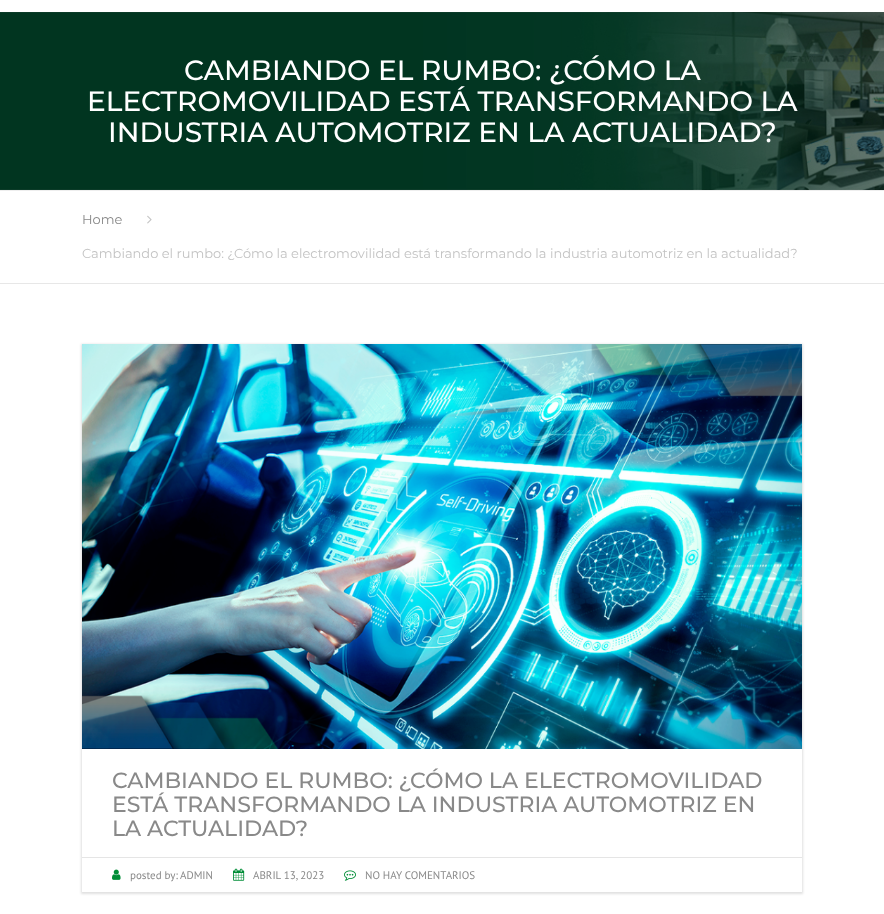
(async () => {
    const canvas = document.querySelector("canvas");
    canvas.width = 884;
    canvas.height = 914;
    const context = canvas.getContext("2d");
    context.miterLimit = 4;
    context.fontKerning = "normal";
    function write(s, x, y, font, color) {
        context.font = font;
        context.fillStyle = color;
        context.fillText(s, x, y);
    }
    function block(x, y, w, h, color) {
        context.fillStyle = color;
        context.fillRect(x, y, w, h);
    }
    async function photo(src, x, y, w, h) {
        const img = new Image();
        img.src = src;
        await img.decode();
        context.drawImage(img, x, y, w, h);
    }

    block(0, 0, 884, 914, "rgb(255, 255, 255)");
    await photo("media/1.png", 0, 12, 884, 178);
    block(0, 190, 884, 1, "rgb(238, 238, 238)");
    write("CAMBIANDO EL RUMBO: ¿CÓMO LA", 184, 80, "500 28px Montserrat", "rgb(255, 255, 255)");
    write("ELECTROMOVILIDAD ESTÁ TRANSFORMANDO LA", 87, 111, "500 28px Montserrat", "rgb(255, 255, 255)");
    write("INDUSTRIA AUTOMOTRIZ EN LA ACTUALIDAD?", 108, 142, "500 28px Montserrat", "rgb(255, 255, 255)");
    block(0, 283, 884, 1, "rgb(231, 231, 231)");
    write("Home", 82, 224, "13px Montserrat", "rgb(137, 137, 137)");
    await photo("media/2.png", 147, 215, 5, 9);
    write("Cambiando el rumbo: ¿Cómo la electromovilidad está transformando la industria automotriz en la actualidad?", 82, 258, "13px Montserrat", "rgb(195, 195, 195)");
    context.save();
    context.beginPath();
    context.moveTo(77, 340);
    context.lineTo(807, 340);
    context.lineTo(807, 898);
    context.lineTo(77, 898);
    context.closePath();
    context.moveTo(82, 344);
    context.lineTo(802, 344);
    context.lineTo(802, 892);
    context.lineTo(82, 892);
    context.closePath();
    context.clip("evenodd");
    context.fillStyle = "rgba(0, 0, 0, 0.12)";
    context.filter = "blur(1px)";
    context.beginPath();
    context.rect(81, 344, 722, 550);
    context.fill();
    context.filter = "none";
    context.restore();
    await photo("media/3.png", 82, 344, 720, 405);
    write("CAMBIANDO EL RUMBO: ¿CÓMO LA ELECTROMOVILIDAD", 112, 788, "500 22px Montserrat", "rgb(137, 137, 137)");
    write("ESTÁ TRANSFORMANDO LA INDUSTRIA AUTOMOTRIZ EN", 112, 812, "500 22px Montserrat", "rgb(137, 137, 137)");
    write("LA ACTUALIDAD?", 112, 836, "500 22px Montserrat", "rgb(137, 137, 137)");
    block(82, 857, 720, 1, "rgb(229, 229, 229)");
    await photo("media/4.png", 112, 869, 9, 11);
    write("posted by:", 130, 879, "11px PT Sans", "rgb(137, 137, 137)");
    write("ADMIN", 180, 879, "11px PT Sans", "rgb(137, 137, 137)");
    await photo("media/5.png", 233, 868, 12, 13);
    write("ABRIL 13, 2023", 253, 879, "11px PT Sans", "rgb(137, 137, 137)");
    await photo("media/6.png", 344, 870, 12, 11);
    write("NO HAY COMENTARIOS", 365, 879, "11px PT Sans", "rgb(137, 137, 137)");
})();
